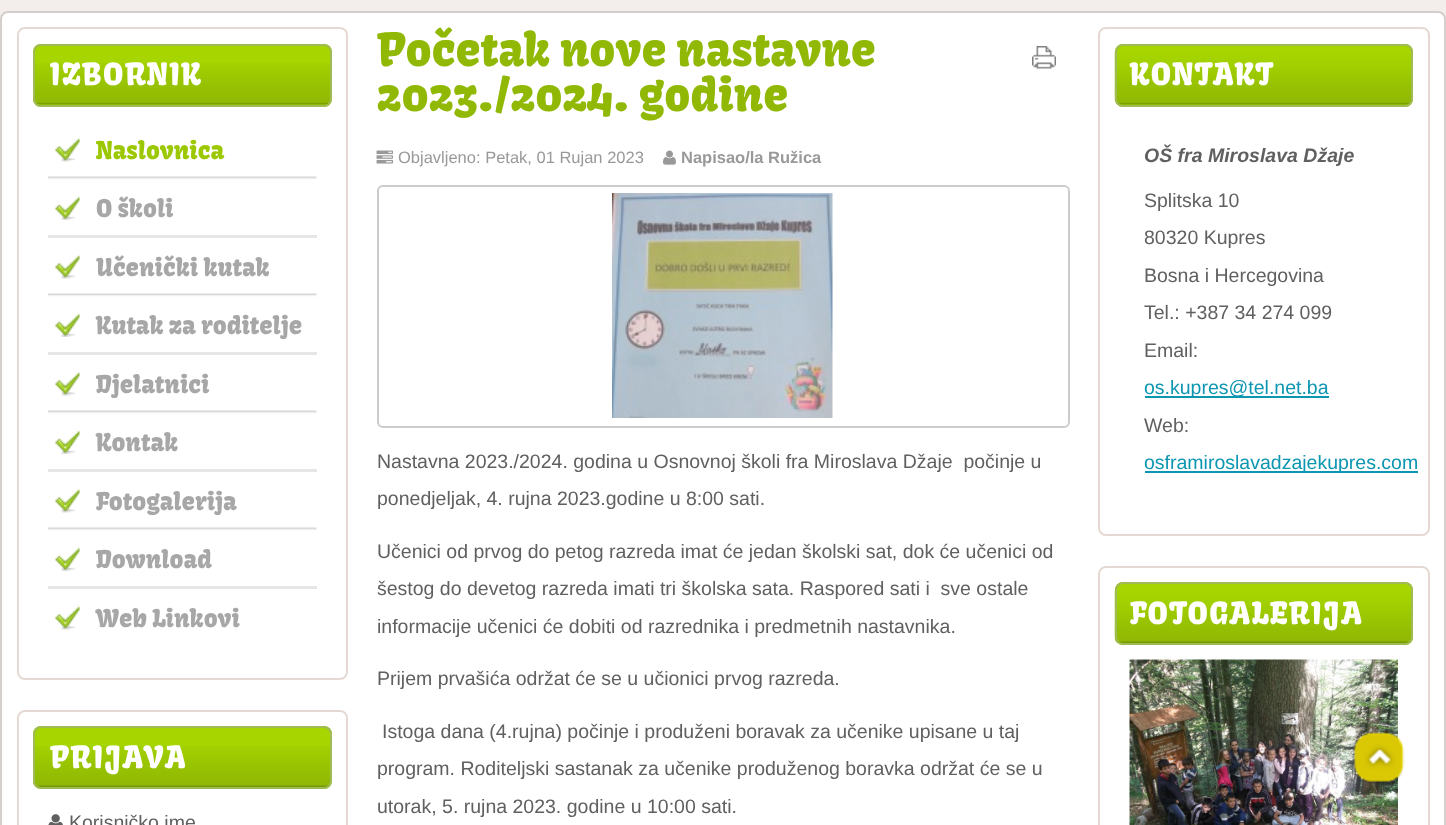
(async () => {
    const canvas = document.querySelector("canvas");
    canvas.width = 1446;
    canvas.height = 825;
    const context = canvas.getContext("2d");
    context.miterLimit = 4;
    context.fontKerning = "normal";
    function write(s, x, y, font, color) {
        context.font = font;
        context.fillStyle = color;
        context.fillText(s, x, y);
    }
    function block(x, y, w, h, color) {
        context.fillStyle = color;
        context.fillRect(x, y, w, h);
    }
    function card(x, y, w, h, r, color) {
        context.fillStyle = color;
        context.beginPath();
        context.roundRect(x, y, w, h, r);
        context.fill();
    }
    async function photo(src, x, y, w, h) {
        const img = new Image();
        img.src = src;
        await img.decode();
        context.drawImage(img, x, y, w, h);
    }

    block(0, 0, 1446, 825, "rgb(243, 238, 235)");
    context.fillStyle = "rgb(255, 255, 255)";
    context.beginPath();
    context.roundRect(1, 12, 1444, 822, 7);
    context.fill();
    context.strokeStyle = "rgb(212, 207, 204)";
    context.lineWidth = 2;
    context.stroke();
    context.beginPath();
    context.roundRect(18, 28, 329, 651, 7);
    context.strokeStyle = "rgb(229, 218, 211)";
    context.stroke();
    card(33, 44, 299, 63, 8, "rgb(166, 213, 0)");
    await photo("media/1.png", 33, 63, 299, 42);
    context.beginPath();
    context.roundRect(34, 45, 297, 61, 7);
    context.strokeStyle = "rgb(160, 186, 85)";
    context.stroke();
    context.letterSpacing = "1.5px";
    write("IZBORNIK", 50, 85, "30px Kavoon", "rgb(255, 255, 255)");
    await photo("media/2.png", 48, 176, 269, 4);
    await photo("media/3.png", 55, 137, 25, 25);
    context.letterSpacing = "0px";
    write("Naslovnica", 96, 159, "24px Kavoon", "rgb(156, 200, 2)");
    block(48, 235, 269, 3, "rgb(229, 230, 231)");
    await photo("media/4.png", 55, 196, 25, 24);
    write("O školi", 96, 217, "24px Kavoon", "rgb(167, 167, 167)");
    await photo("media/2.png", 48, 293, 269, 4);
    await photo("media/3.png", 55, 254, 25, 25);
    write("Učenički kutak", 96, 276, "24px Kavoon", "rgb(167, 167, 167)");
    block(48, 352, 269, 3, "rgb(229, 230, 231)");
    await photo("media/4.png", 55, 313, 25, 24);
    write("Kutak za roditelje", 96, 334, "24px Kavoon", "rgb(167, 167, 167)");
    await photo("media/2.png", 48, 410, 269, 4);
    await photo("media/3.png", 55, 371, 25, 25);
    write("Djelatnici", 96, 393, "24px Kavoon", "rgb(167, 167, 167)");
    block(48, 469, 269, 3, "rgb(229, 230, 231)");
    await photo("media/4.png", 55, 430, 25, 24);
    write("Kontak", 96, 451, "24px Kavoon", "rgb(167, 167, 167)");
    await photo("media/2.png", 48, 527, 269, 4);
    await photo("media/3.png", 55, 488, 25, 25);
    write("Fotogalerija", 96, 510, "24px Kavoon", "rgb(167, 167, 167)");
    block(48, 586, 269, 3, "rgb(229, 230, 231)");
    await photo("media/4.png", 55, 547, 25, 24);
    write("Download", 96, 568, "24px Kavoon", "rgb(167, 167, 167)");
    await photo("media/3.png", 55, 605, 25, 25);
    write("Web Linkovi", 96, 627, "24px Kavoon", "rgb(167, 167, 167)");
    context.beginPath();
    context.roundRect(18, 711, 329, 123, 7);
    context.strokeStyle = "rgb(229, 218, 211)";
    context.stroke();
    card(33, 726, 299, 63, 8, "rgb(166, 213, 0)");
    await photo("media/5.png", 33, 746, 299, 41);
    context.beginPath();
    context.roundRect(34, 727, 297, 61, 7);
    context.strokeStyle = "rgb(160, 186, 85)";
    context.stroke();
    context.letterSpacing = "1.5px";
    write("PRIJAVA", 50, 768, "30px Kavoon", "rgb(255, 255, 255)");
    await photo("media/6.png", 48, 814, 15, 11);
    context.letterSpacing = "0px";
    write("Korisničko ime", 69, 829, "19.5px Liberation Sans", "rgb(96, 96, 96)");
    write("Početak nove nastavne", 377, 66, "45px Kavoon", "rgb(144, 184, 4)");
    write("2023./2024. godine", 377, 111, "45px Kavoon", "rgb(144, 184, 4)");
    await photo("media/7.png", 1032, 46, 24, 23);
    await photo("media/8.png", 376, 150, 17, 14);
    write("Objavljeno: Petak, 01 Rujan 2023", 398, 163, "16.5px Liberation Sans", "rgb(153, 153, 153)");
    await photo("media/9.png", 663, 150, 13, 15);
    write("Napisao/la Ružica", 681, 163, "bold 16.5px Liberation Sans", "rgb(153, 153, 153)");
    context.beginPath();
    context.roundRect(378, 186, 691, 241, 5);
    context.strokeStyle = "rgb(204, 204, 204)";
    context.stroke();
    await photo("media/10.png", 612, 193, 221, 225);
    write("Nastavna 2023./2024. godina u Osnovnoj školi fra Miroslava Džaje  počinje u", 377, 468, "19.5px Liberation Sans", "rgb(96, 96, 96)");
    write("ponedjeljak, 4. rujna 2023.godine u 8:00 sati.", 377, 505, "19.5px Liberation Sans", "rgb(96, 96, 96)");
    write("Učenici od prvog do petog razreda imat će jedan školski sat, dok će učenici od", 377, 558, "19.5px Liberation Sans", "rgb(96, 96, 96)");
    write("šestog do devetog razreda imati tri školska sata. Raspored sati i  sve ostale", 377, 595, "19.5px Liberation Sans", "rgb(96, 96, 96)");
    write("informacije učenici će dobiti od razrednika i predmetnih nastavnika.", 377, 633, "19.5px Liberation Sans", "rgb(96, 96, 96)");
    write("Prijem prvašića održat će se u učionici prvog razreda.", 377, 685, "19.5px Liberation Sans", "rgb(96, 96, 96)");
    write("Istoga dana (4.rujna) počinje i produženi boravak za učenike upisane u taj", 382, 738, "19.5px Liberation Sans", "rgb(96, 96, 96)");
    write("program. Roditeljski sastanak za učenike produženog boravka održat će se u", 377, 775, "19.5px Liberation Sans", "rgb(96, 96, 96)");
    write("utorak, 5. rujna 2023. godine u 10:00 sati.", 377, 813, "19.5px Liberation Sans", "rgb(96, 96, 96)");
    context.beginPath();
    context.roundRect(1099, 28, 330, 507, 7);
    context.strokeStyle = "rgb(229, 218, 211)";
    context.stroke();
    card(1115, 44, 298, 63, 8, "rgb(166, 213, 0)");
    await photo("media/11.png", 1114, 52, 299, 53);
    context.beginPath();
    context.roundRect(1116, 45, 296, 61, 7);
    context.strokeStyle = "rgb(160, 186, 85)";
    context.stroke();
    context.letterSpacing = "1.5px";
    write("KONTAKT", 1130, 85, "30px Kavoon", "rgb(255, 255, 255)");
    context.letterSpacing = "0px";
    write("OŠ fra Miroslava Džaje", 1144, 162, "italic bold 19.5px Liberation Sans", "rgb(96, 96, 96)");
    write("Splitska 10", 1144, 207, "19.5px Liberation Sans", "rgb(96, 96, 96)");
    write("80320 Kupres", 1144, 244, "19.5px Liberation Sans", "rgb(96, 96, 96)");
    write("Bosna i Hercegovina", 1144, 282, "19.5px Liberation Sans", "rgb(96, 96, 96)");
    write("Tel.: +387 34 274 099", 1144, 319, "19.5px Liberation Sans", "rgb(96, 96, 96)");
    write("Email:", 1144, 357, "19.5px Liberation Sans", "rgb(96, 96, 96)");
    block(1145, 396, 184, 2, "rgb(12, 150, 177)");
    write("os.kupres@tel.net.ba", 1144, 394, "19.5px Liberation Sans", "rgb(12, 150, 177)");
    write("Web:", 1144, 432, "19.5px Liberation Sans", "rgb(96, 96, 96)");
    block(1145, 471, 273, 2, "rgb(12, 150, 177)");
    write("osframiroslavadzajekupres.com", 1144, 469, "19.5px Liberation Sans", "rgb(12, 150, 177)");
    context.beginPath();
    context.roundRect(1099, 567, 330, 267, 7);
    context.strokeStyle = "rgb(229, 218, 211)";
    context.stroke();
    card(1115, 582, 298, 63, 8, "rgb(166, 213, 0)");
    await photo("media/12.png", 1114, 590, 299, 53);
    context.beginPath();
    context.roundRect(1116, 583, 296, 61, 7);
    context.strokeStyle = "rgb(160, 186, 85)";
    context.stroke();
    context.letterSpacing = "1.5px";
    write("FOTOGALERIJA", 1130, 624, "30px Kavoon", "rgb(255, 255, 255)");
    await photo("media/13.png", 1129, 659, 269, 166);
    await photo("media/14.png", 1354, 732, 51, 52);
})();
